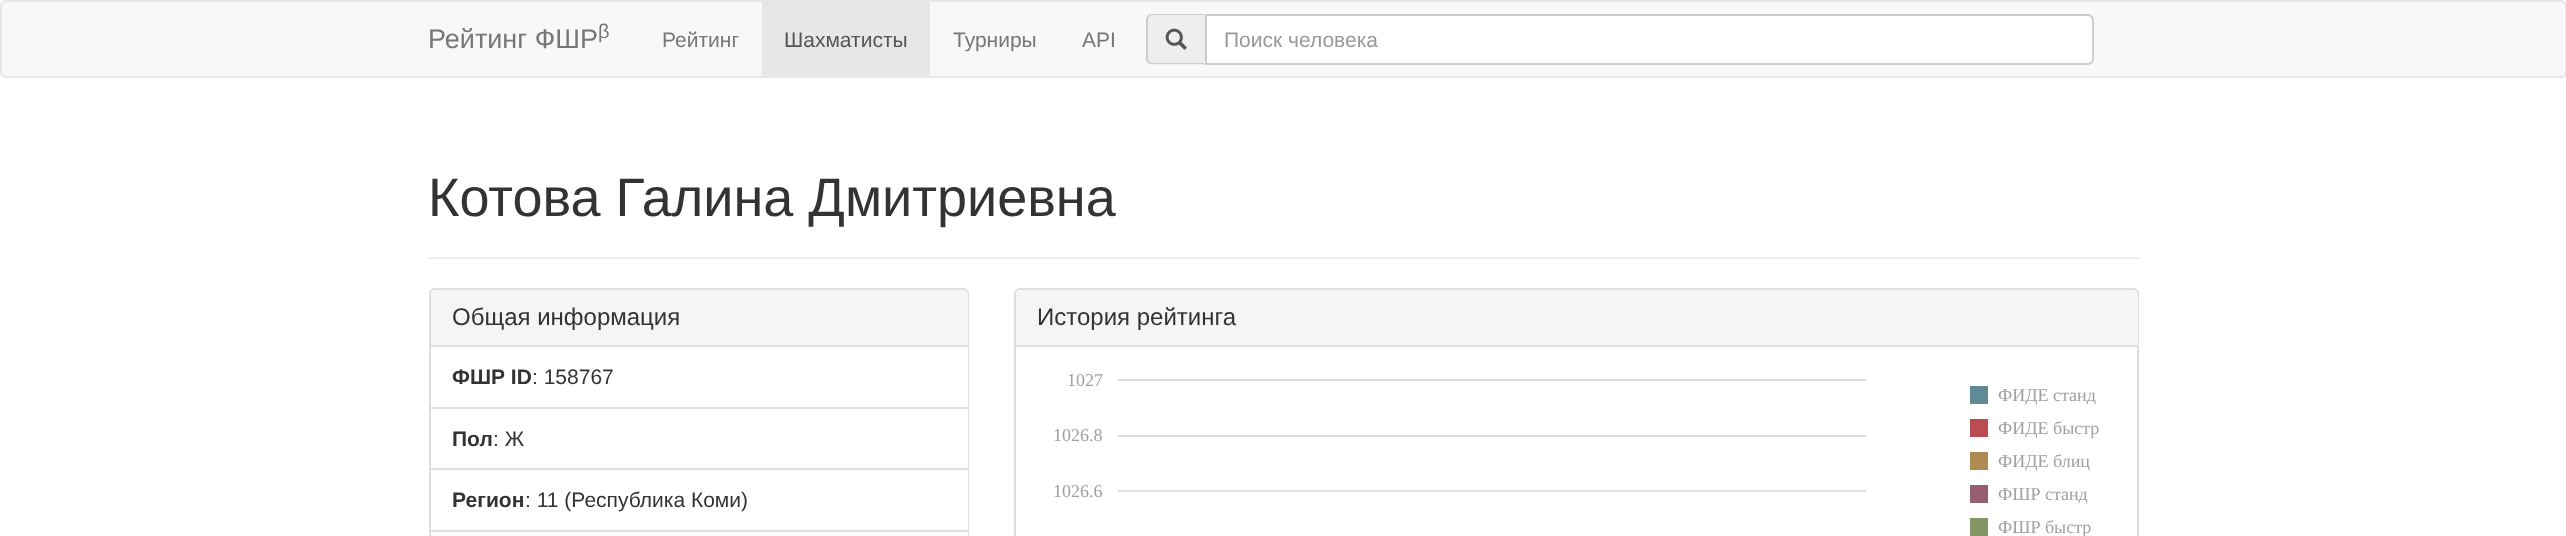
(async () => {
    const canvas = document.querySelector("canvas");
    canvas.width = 2566;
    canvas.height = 536;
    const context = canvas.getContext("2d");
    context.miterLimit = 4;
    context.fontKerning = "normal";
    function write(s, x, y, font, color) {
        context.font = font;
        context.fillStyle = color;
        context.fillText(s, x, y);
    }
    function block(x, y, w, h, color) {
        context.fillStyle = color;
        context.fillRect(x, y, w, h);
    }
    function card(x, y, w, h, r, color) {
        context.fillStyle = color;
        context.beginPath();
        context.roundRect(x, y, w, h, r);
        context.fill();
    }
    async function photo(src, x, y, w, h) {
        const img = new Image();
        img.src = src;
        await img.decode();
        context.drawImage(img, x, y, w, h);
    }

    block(0, 0, 2566, 536, "rgb(255, 255, 255)");
    context.fillStyle = "rgb(248, 248, 248)";
    context.beginPath();
    context.roundRect(1, 1, 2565, 76, 5);
    context.fill();
    context.strokeStyle = "rgb(231, 231, 231)";
    context.lineWidth = 2;
    context.stroke();
    write("Рейтинг ФШР", 428, 48, "27px Liberation Sans", "rgb(119, 119, 119)");
    write("β", 598, 38, "20px Liberation Sans", "rgb(119, 119, 119)");
    write("Рейтинг", 662, 47, "21px Liberation Sans", "rgb(119, 119, 119)");
    block(762, 2, 168, 74, "rgb(231, 231, 231)");
    write("Шахматисты", 784, 47, "21px Liberation Sans", "rgb(85, 85, 85)");
    write("Турниры", 953, 47, "21px Liberation Sans", "rgb(119, 119, 119)");
    write("API", 1082, 47, "21px Liberation Sans", "rgb(119, 119, 119)");
    context.fillStyle = "rgb(238, 238, 238)";
    context.beginPath();
    context.roundRect(1146, 14, 59, 51, [6, 0, 0, 6]);
    context.fill();
    context.fillStyle = "rgb(204, 204, 204)";
    context.beginPath();
    context.moveTo(1152, 14);
    context.lineTo(1204, 14);
    context.lineTo(1204, 64);
    context.lineTo(1152, 64);
    context.bezierCurveTo(1149, 64, 1146, 62, 1146, 58);
    context.lineTo(1146, 20);
    context.bezierCurveTo(1146, 16, 1149, 14, 1152, 14);
    context.closePath();
    context.moveTo(1152, 15);
    context.lineTo(1204, 15);
    context.lineTo(1204, 63);
    context.lineTo(1152, 63);
    context.bezierCurveTo(1150, 63, 1148, 61, 1148, 58);
    context.lineTo(1148, 20);
    context.bezierCurveTo(1148, 17, 1150, 15, 1152, 15);
    context.closePath();
    context.fill("evenodd");
    await photo("media/1.png", 1165, 28, 22, 22);
    card(1205, 14, 889, 51, 6, "rgb(255, 255, 255)");
    context.fillStyle = "rgba(0, 0, 0, 0.07)";
    context.beginPath();
    context.moveTo(1206, 16);
    context.lineTo(2088, 16);
    context.bezierCurveTo(2090, 16, 2092, 19, 2092, 21);
    context.lineTo(2092, 61);
    context.bezierCurveTo(2093, 60, 2093, 59, 2093, 58);
    context.lineTo(2093, 20);
    context.bezierCurveTo(2093, 17, 2091, 15, 2088, 15);
    context.lineTo(1206, 15);
    context.closePath();
    context.fill();
    context.beginPath();
    context.roundRect(1206, 15, 887, 49, [0, 5, 5, 0]);
    context.strokeStyle = "rgb(204, 204, 204)";
    context.stroke();
    write("Поиск человека", 1224, 47, "21px Liberation Sans", "rgb(153, 153, 153)");
    block(429, 257, 1710, 2, "rgb(238, 238, 238)");
    write("Котова Галина Дмитриевна", 428, 216, "54px Liberation Sans", "rgb(51, 51, 51)");
    context.beginPath();
    context.roundRect(430, 289, 538, 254, 5);
    context.strokeStyle = "rgb(221, 221, 221)";
    context.stroke();
    context.fillStyle = "rgb(245, 245, 245)";
    context.beginPath();
    context.roundRect(431, 290, 537, 57, [5, 5, 0, 0]);
    context.fill();
    block(431, 345, 537, 2, "rgb(221, 221, 221)");
    write("Общая информация", 452, 325, "24px Liberation Sans", "rgb(51, 51, 51)");
    block(967, 347, 1, 60, "rgb(255, 255, 255)");
    write("ФШР ID", 452, 384, "bold 21px Liberation Sans", "rgb(51, 51, 51)");
    write(": 158767", 532, 384, "21px Liberation Sans", "rgb(51, 51, 51)");
    block(967, 409, 1, 59, "rgb(255, 255, 255)");
    block(431, 407, 537, 2, "rgb(221, 221, 221)");
    block(431, 468, 537, 2, "rgb(221, 221, 221)");
    write("Пол", 452, 446, "bold 21px Liberation Sans", "rgb(51, 51, 51)");
    write(": Ж", 493, 446, "21px Liberation Sans", "rgb(51, 51, 51)");
    block(967, 470, 1, 60, "rgb(255, 255, 255)");
    write("Регион", 452, 507, "bold 21px Liberation Sans", "rgb(51, 51, 51)");
    write(": 11 (Республика Коми)", 525, 507, "21px Liberation Sans", "rgb(51, 51, 51)");
    block(967, 532, 1, 4, "rgb(255, 255, 255)");
    block(431, 530, 537, 2, "rgb(221, 221, 221)");
    context.beginPath();
    context.roundRect(1015, 289, 1123, 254, 5);
    context.stroke();
    context.fillStyle = "rgb(245, 245, 245)";
    context.beginPath();
    context.roundRect(1016, 290, 1122, 57, [5, 5, 0, 0]);
    context.fill();
    block(1016, 345, 1122, 2, "rgb(221, 221, 221)");
    write("История рейтинга", 1037, 325, "24px Liberation Sans", "rgb(51, 51, 51)");
    write("1027", 1067, 386, "18px Liberation Serif", "rgb(160, 160, 160)");
    block(1118, 379, 748, 2, "rgb(222, 222, 222)");
    write("ФИДЕ станд", 1998, 401, "18px Liberation Serif", "rgb(160, 160, 160)");
    block(1970, 386, 18, 18, "rgb(95, 139, 149)");
    write("1026.8", 1053, 441, "18px Liberation Serif", "rgb(160, 160, 160)");
    block(1118, 435, 748, 2, "rgb(222, 222, 222)");
    write("ФИДЕ быстр", 1998, 434, "18px Liberation Serif", "rgb(160, 160, 160)");
    block(1970, 419, 18, 18, "rgb(186, 77, 81)");
    write("ФИДЕ блиц", 1998, 467, "18px Liberation Serif", "rgb(160, 160, 160)");
    block(1970, 452, 18, 18, "rgb(175, 138, 83)");
    write("1026.6", 1053, 497, "18px Liberation Serif", "rgb(160, 160, 160)");
    block(1118, 490, 748, 2, "rgb(222, 222, 222)");
    write("ФШР станд", 1998, 500, "18px Liberation Serif", "rgb(160, 160, 160)");
    block(1970, 485, 18, 18, "rgb(149, 95, 113)");
    write("ФШР быстр", 1998, 533, "18px Liberation Serif", "rgb(160, 160, 160)");
    block(1970, 518, 18, 18, "rgb(133, 150, 102)");
})();
